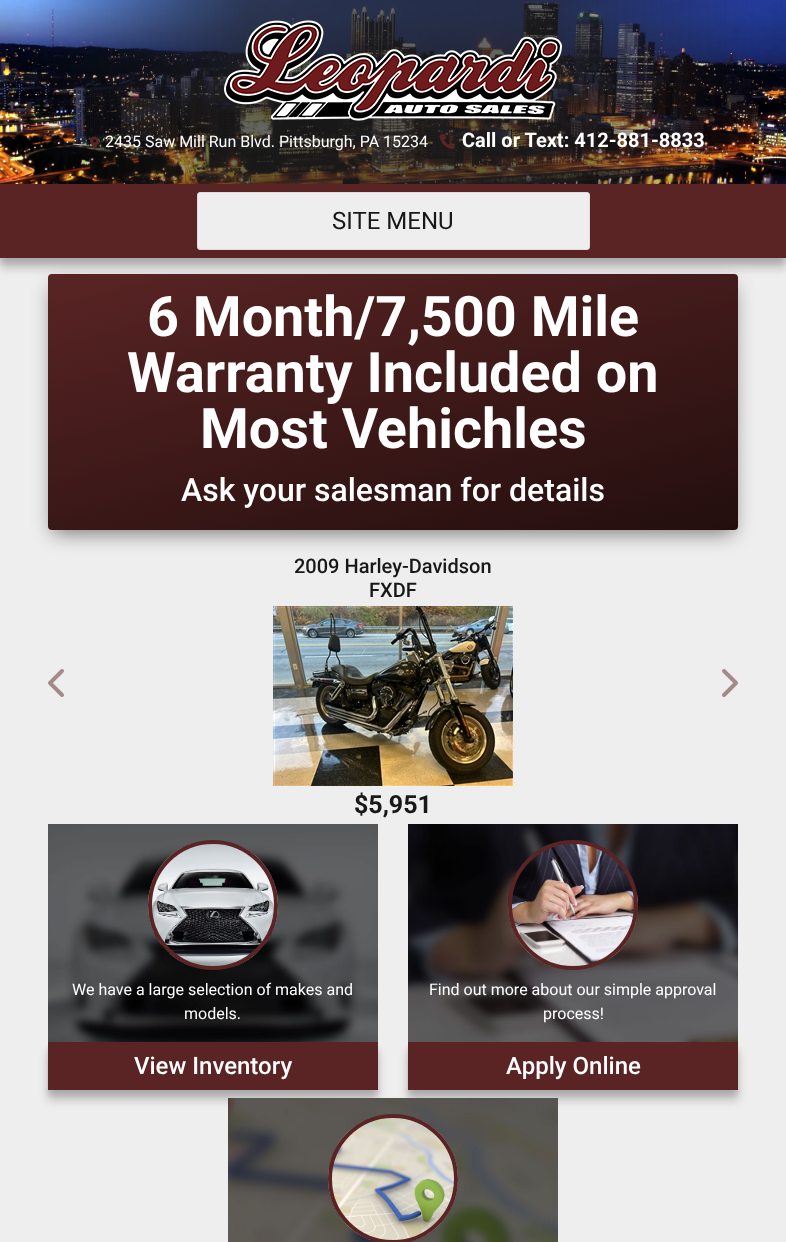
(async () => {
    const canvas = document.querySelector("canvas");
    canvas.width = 786;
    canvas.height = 1242;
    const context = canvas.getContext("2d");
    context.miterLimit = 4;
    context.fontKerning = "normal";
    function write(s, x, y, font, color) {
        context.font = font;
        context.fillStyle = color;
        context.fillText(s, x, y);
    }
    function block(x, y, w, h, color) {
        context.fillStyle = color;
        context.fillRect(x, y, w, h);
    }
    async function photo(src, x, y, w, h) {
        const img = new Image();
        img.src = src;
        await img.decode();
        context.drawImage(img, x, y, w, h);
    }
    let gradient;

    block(0, 0, 786, 1242, "rgb(238, 238, 238)");
    context.fillStyle = "rgba(0, 0, 0, 0.1)";
    context.filter = "blur(2.5px)";
    context.beginPath();
    context.rect(0, 189, 786, 74);
    context.fill();
    context.filter = "none";
    context.fillStyle = "rgba(0, 0, 0, 0.2)";
    context.filter = "blur(5px)";
    context.beginPath();
    context.rect(0, 194, 786, 74);
    context.fill();
    context.filter = "none";
    await photo("media/1.png", 0, 0, 786, 184);
    await photo("media/2.png", 224, 20, 338, 101);
    await photo("media/3.png", 90, 136, 9, 13);
    write("2435 Saw Mill Run Blvd. Pittsburgh, PA 15234", 105, 147, "16px Roboto", "rgb(255, 255, 255)");
    await photo("media/4.png", 440, 134, 15, 15);
    write("Call or Text: 412-881-8833", 462, 147, "bold 20px Roboto", "rgb(255, 255, 255)");
    block(0, 184, 786, 74, "rgb(90, 36, 36)");
    context.fillStyle = "rgb(238, 238, 238)";
    context.beginPath();
    context.roundRect(197.5, 192.5, 392, 57, 2.5);
    context.fill();
    context.strokeStyle = "rgb(220, 220, 220)";
    context.stroke();
    write("SITE MENU", 332, 229, "24px Roboto", "rgb(24, 24, 24)");
    context.fillStyle = "rgba(0, 0, 0, 0.5)";
    context.filter = "blur(10px)";
    context.beginPath();
    context.rect(53, 287, 680, 246);
    context.fill();
    context.filter = "none";
    gradient = context.createLinearGradient(448, 608, 338, 196);
    gradient.addColorStop(0, "rgb(35, 14, 14)");
    gradient.addColorStop(1, "rgb(90, 36, 36)");
    context.fillStyle = gradient;
    context.beginPath();
    context.roundRect(48, 274, 690, 256, 4);
    context.fill();
    write("6 Month/7,500 Mile", 147, 336, "bold 55.75px Roboto", "rgb(255, 255, 255)");
    write("Warranty Included on", 127, 392, "bold 55.75px Roboto", "rgb(255, 255, 255)");
    write("Most Vehichles", 200, 448, "bold 55.75px Roboto", "rgb(255, 255, 255)");
    write("Ask your salesman for details", 181, 501, "500 32px Roboto", "rgb(255, 255, 255)");
    await photo("media/5.png", 48, 669, 16, 28);
    write("2009 Harley-Davidson", 294, 573, "500 20px Roboto", "rgb(24, 24, 24)");
    write("FXDF", 369, 597, "500 20px Roboto", "rgb(24, 24, 24)");
    await photo("media/6.png", 273, 606, 240, 180);
    write("$5,951", 354, 813, "bold 25px Roboto", "rgb(24, 24, 24)");
    await photo("media/7.png", 722, 669, 16, 28);
    await photo("media/8.png", 48, 824, 330, 218);
    await photo("media/9.png", 148, 844, 130, 122);
    context.beginPath();
    context.arc(213, 905, 63, 0, Math.PI * 2);
    context.strokeStyle = "rgb(90, 36, 36)";
    context.lineWidth = 4;
    context.stroke();
    write("We have a large selection of makes and", 72, 995, "16px Roboto", "rgb(255, 255, 255)");
    write("models.", 184, 1019, "16px Roboto", "rgb(255, 255, 255)");
    context.fillStyle = "rgba(0, 0, 0, 0.1)";
    context.filter = "blur(2.5px)";
    context.beginPath();
    context.rect(48, 1047, 330, 48);
    context.fill();
    context.filter = "none";
    context.fillStyle = "rgba(0, 0, 0, 0.2)";
    context.filter = "blur(5px)";
    context.beginPath();
    context.rect(48, 1052, 330, 48);
    context.fill();
    context.filter = "none";
    block(48, 1042, 330, 48, "rgb(90, 36, 36)");
    write("View Inventory", 134, 1074, "500 24px Roboto", "rgb(255, 255, 255)");
    await photo("media/10.png", 408, 824, 330, 218);
    await photo("media/11.png", 508, 844, 130, 122);
    context.beginPath();
    context.arc(573, 905, 63, 0, Math.PI * 2);
    context.stroke();
    write("Find out more about our simple approval", 429, 995, "16px Roboto", "rgb(255, 255, 255)");
    write("process!", 543, 1019, "16px Roboto", "rgb(255, 255, 255)");
    context.fillStyle = "rgba(0, 0, 0, 0.1)";
    context.filter = "blur(2.5px)";
    context.beginPath();
    context.rect(408, 1047, 330, 48);
    context.fill();
    context.filter = "none";
    context.fillStyle = "rgba(0, 0, 0, 0.2)";
    context.filter = "blur(5px)";
    context.beginPath();
    context.rect(408, 1052, 330, 48);
    context.fill();
    context.filter = "none";
    block(408, 1042, 330, 48, "rgb(90, 36, 36)");
    write("Apply Online", 506, 1074, "500 24px Roboto", "rgb(255, 255, 255)");
    await photo("media/12.png", 228, 1098, 330, 144);
    await photo("media/13.png", 328, 1118, 130, 122);
    context.beginPath();
    context.arc(393, 1179, 63, 0, Math.PI * 2);
    context.stroke();
})();
